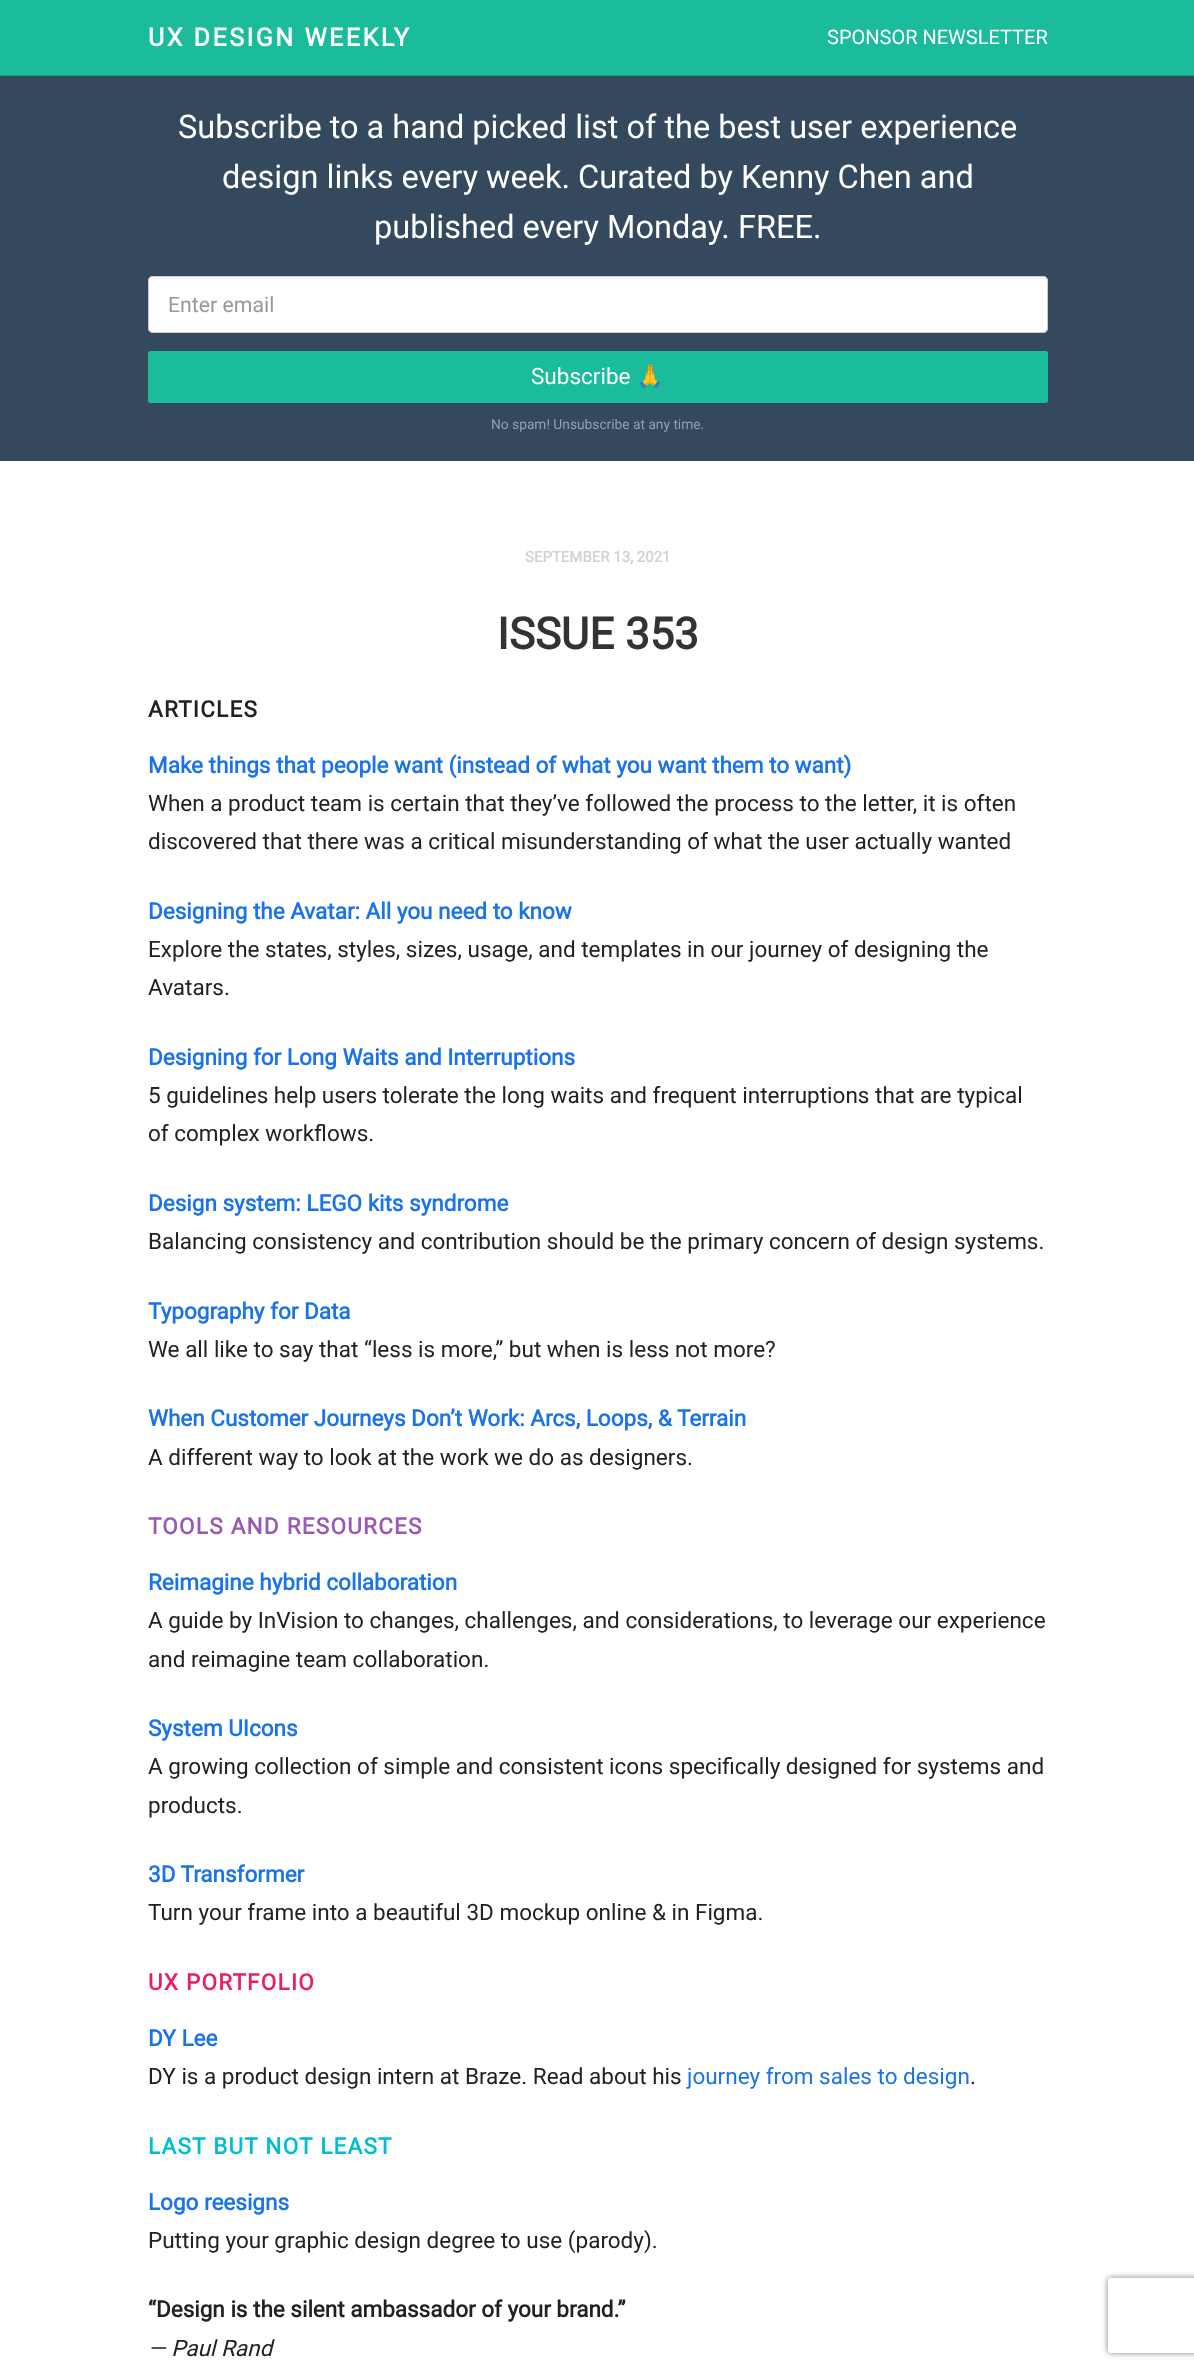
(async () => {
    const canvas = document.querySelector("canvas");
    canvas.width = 1194;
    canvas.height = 2370;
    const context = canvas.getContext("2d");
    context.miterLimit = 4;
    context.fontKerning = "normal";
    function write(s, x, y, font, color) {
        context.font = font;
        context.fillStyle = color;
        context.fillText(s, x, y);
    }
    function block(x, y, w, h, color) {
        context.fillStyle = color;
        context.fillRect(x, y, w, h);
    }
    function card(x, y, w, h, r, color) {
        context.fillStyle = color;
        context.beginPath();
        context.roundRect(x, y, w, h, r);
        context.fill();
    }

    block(0, 0, 1194, 2370, "rgb(52, 73, 94)");
    block(0, 0, 1194, 75, "rgb(26, 188, 156)");
    block(0, 75, 1194, 1, "rgb(22, 160, 133)");
    context.letterSpacing = "2.5px";
    write("UX DESIGN WEEKLY", 148, 46, "bold 25px Roboto", "rgb(255, 255, 255)");
    context.letterSpacing = "0px";
    write("SPONSOR NEWSLETTER", 827, 44, "20px Roboto", "rgb(255, 255, 255)");
    write("Subscribe to a hand picked list of the best user experience", 178, 138, "32.5px Roboto", "rgb(255, 255, 255)");
    write("design links every week. Curated by Kenny Chen and", 222, 188, "32.5px Roboto", "rgb(255, 255, 255)");
    write("published every Monday. FREE.", 374, 238, "32.5px Roboto", "rgb(255, 255, 255)");
    card(148, 276, 900, 57, 5, "rgb(255, 255, 255)");
    context.fillStyle = "rgb(236, 236, 236)";
    context.beginPath();
    context.moveTo(152, 279);
    context.lineTo(1042, 279);
    context.bezierCurveTo(1044, 279, 1045, 279, 1046, 280);
    context.bezierCurveTo(1045, 279, 1044, 278, 1042, 278);
    context.lineTo(153, 278);
    context.bezierCurveTo(152, 278, 150, 279, 150, 280);
    context.closePath();
    context.fill();
    context.beginPath();
    context.roundRect(148.5, 276.5, 899, 56, 4.5);
    context.strokeStyle = "rgb(204, 204, 204)";
    context.stroke();
    write("Enter email", 168, 312, "21.25px Roboto", "rgb(153, 153, 153)");
    card(148, 351, 900, 52, 2.5, "rgb(26, 188, 156)");
    write("Subscribe", 531, 384, "22.5px Roboto", "rgb(255, 255, 255)");
    write("🙏", 636, 384, "22.5px Noto Color Emoji", "rgb(255, 255, 255)");
    write("No spam! Unsubscribe at any time.", 491, 429, "13.75px Roboto", "rgb(150, 159, 169)");
    block(0, 461, 1194, 1909, "rgb(255, 255, 255)");
    context.save();
    context.beginPath();
    context.moveTo(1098, 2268);
    context.lineTo(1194, 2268);
    context.lineTo(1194, 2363);
    context.lineTo(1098, 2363);
    context.closePath();
    context.moveTo(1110.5, 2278);
    context.lineTo(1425.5, 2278);
    context.bezierCurveTo(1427, 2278, 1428, 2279, 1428, 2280.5);
    context.lineTo(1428, 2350.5);
    context.bezierCurveTo(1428, 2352, 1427, 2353, 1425.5, 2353);
    context.lineTo(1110.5, 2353);
    context.bezierCurveTo(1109, 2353, 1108, 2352, 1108, 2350.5);
    context.lineTo(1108, 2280.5);
    context.bezierCurveTo(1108, 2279, 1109, 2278, 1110.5, 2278);
    context.closePath();
    context.clip("evenodd");
    context.fillStyle = "rgb(128, 128, 128)";
    context.filter = "blur(3px)";
    context.beginPath();
    context.roundRect(1108, 2278, 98, 75, 2.5);
    context.fill();
    context.filter = "none";
    context.restore();
    write("SEPTEMBER 13, 2021", 525, 562, "bold 15px Roboto", "rgb(210, 210, 210)");
    write("ISSUE 353", 497, 649, "bold 43.75px Roboto", "rgb(51, 51, 51)");
    context.letterSpacing = "1.25px";
    write("ARTICLES", 148, 717, "bold 22.5px Roboto", "rgb(32, 33, 36)");
    context.letterSpacing = "0px";
    write("Make things that people want (instead of what you want them to want)", 148, 773, "bold 22.5px Roboto", "rgb(26, 115, 232)");
    write("When a product team is certain that they’ve followed the process to the letter, it is often", 148, 811, "22.5px Roboto", "rgb(32, 33, 36)");
    write("discovered that there was a critical misunderstanding of what the user actually wanted", 148, 849, "22.5px Roboto", "rgb(32, 33, 36)");
    write("Designing the Avatar: All you need to know", 148, 919, "bold 22.5px Roboto", "rgb(26, 115, 232)");
    write("Explore the states, styles, sizes, usage, and templates in our journey of designing the", 148, 957, "22.5px Roboto", "rgb(32, 33, 36)");
    write("Avatars.", 148, 995, "22.5px Roboto", "rgb(32, 33, 36)");
    write("Designing for Long Waits and Interruptions", 148, 1065, "bold 22.5px Roboto", "rgb(26, 115, 232)");
    write("5 guidelines help users tolerate the long waits and frequent interruptions that are typical", 148, 1103, "22.5px Roboto", "rgb(32, 33, 36)");
    write("of complex workflows.", 148, 1141, "22.5px Roboto", "rgb(32, 33, 36)");
    write("Design system: LEGO kits syndrome", 148, 1211, "bold 22.5px Roboto", "rgb(26, 115, 232)");
    write("Balancing consistency and contribution should be the primary concern of design systems.", 148, 1249, "22.5px Roboto", "rgb(32, 33, 36)");
    write("Typography for Data", 148, 1319, "bold 22.5px Roboto", "rgb(26, 115, 232)");
    write("We all like to say that “less is more,” but when is less not more?", 148, 1357, "22.5px Roboto", "rgb(32, 33, 36)");
    write("When Customer Journeys Don’t Work: Arcs, Loops, & Terrain", 148, 1426, "bold 22.5px Roboto", "rgb(26, 115, 232)");
    write("A different way to look at the work we do as designers.", 148, 1465, "22.5px Roboto", "rgb(32, 33, 36)");
    context.letterSpacing = "1.25px";
    write("TOOLS AND RESOURCES", 148, 1534, "bold 22.5px Roboto", "rgb(155, 89, 182)");
    context.letterSpacing = "0px";
    write("Reimagine hybrid collaboration", 148, 1590, "bold 22.5px Roboto", "rgb(26, 115, 232)");
    write("A guide by InVision to changes, challenges, and considerations, to leverage our experience", 148, 1628, "22.5px Roboto", "rgb(32, 33, 36)");
    write("and reimagine team collaboration.", 148, 1667, "22.5px Roboto", "rgb(32, 33, 36)");
    write("System UIcons", 148, 1736, "bold 22.5px Roboto", "rgb(26, 115, 232)");
    write("A growing collection of simple and consistent icons specifically designed for systems and", 148, 1774, "22.5px Roboto", "rgb(32, 33, 36)");
    write("products.", 148, 1813, "22.5px Roboto", "rgb(32, 33, 36)");
    write("3D Transformer", 148, 1882, "bold 22.5px Roboto", "rgb(26, 115, 232)");
    write("Turn your frame into a beautiful 3D mockup online & in Figma.", 148, 1920, "22.5px Roboto", "rgb(32, 33, 36)");
    context.letterSpacing = "1.25px";
    write("UX PORTFOLIO", 148, 1990, "bold 22.5px Roboto", "rgb(233, 30, 99)");
    context.letterSpacing = "0px";
    write("DY Lee", 148, 2046, "bold 22.5px Roboto", "rgb(26, 115, 232)");
    write("DY is a product design intern at Braze. Read about his", 148, 2084, "22.5px Roboto", "rgb(32, 33, 36)");
    write("journey from sales to design", 687, 2084, "22.5px Roboto", "rgb(26, 115, 232)");
    write(".", 970, 2084, "22.5px Roboto", "rgb(32, 33, 36)");
    context.letterSpacing = "1.25px";
    write("LAST BUT NOT LEAST", 148, 2154, "bold 22.5px Roboto", "rgb(0, 188, 212)");
    context.letterSpacing = "0px";
    write("Logo reesigns", 148, 2210, "bold 22.5px Roboto", "rgb(26, 115, 232)");
    write("Putting your graphic design degree to use (parody).", 148, 2248, "22.5px Roboto", "rgb(32, 33, 36)");
    write("“Design is the silent ambassador of your brand.”", 148, 2317, "bold 22.5px Roboto", "rgb(32, 33, 36)");
    write("— Paul Rand", 148, 2356, "italic 22.5px Roboto", "rgb(32, 33, 36)");
})();
